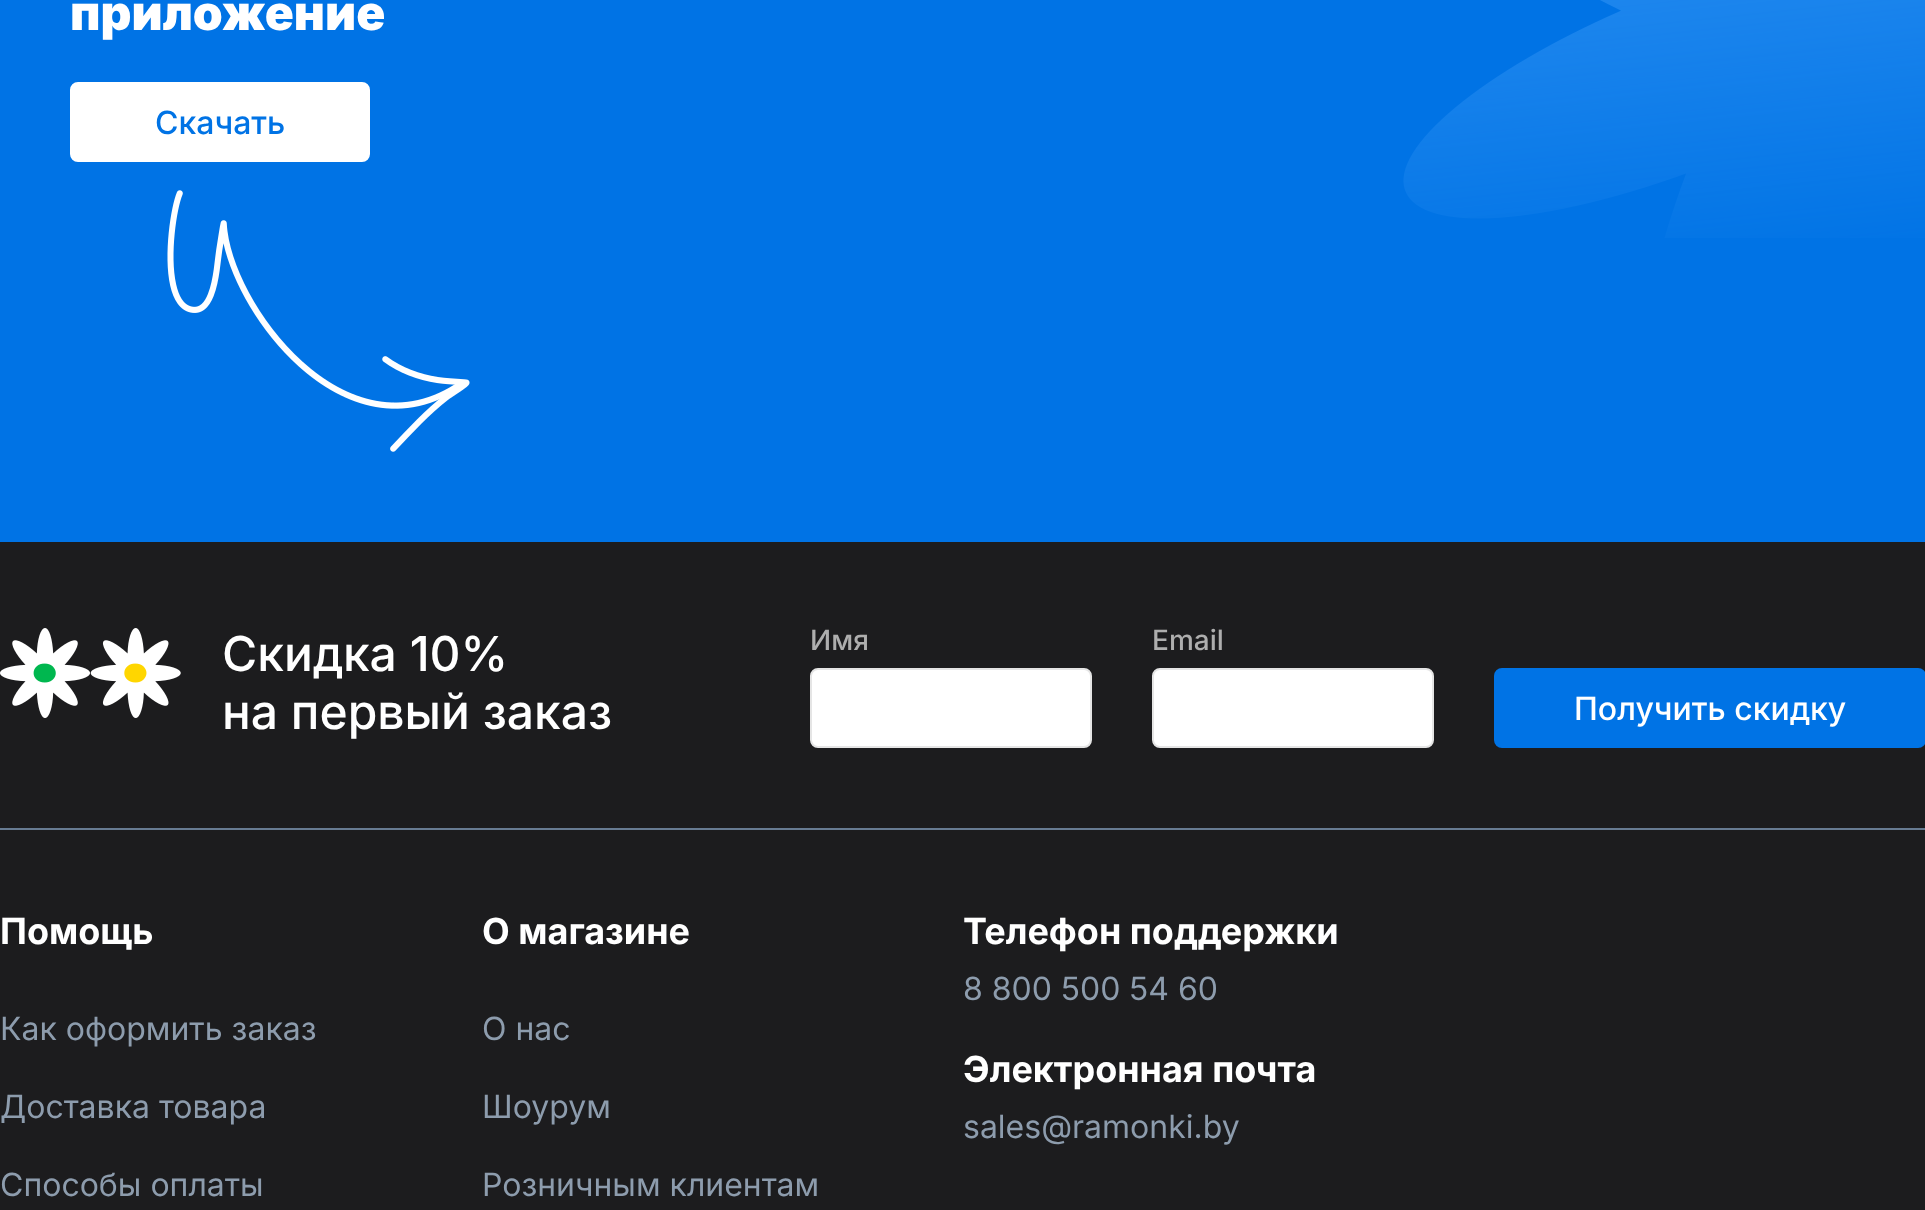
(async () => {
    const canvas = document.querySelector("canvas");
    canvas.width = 1925;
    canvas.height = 1210;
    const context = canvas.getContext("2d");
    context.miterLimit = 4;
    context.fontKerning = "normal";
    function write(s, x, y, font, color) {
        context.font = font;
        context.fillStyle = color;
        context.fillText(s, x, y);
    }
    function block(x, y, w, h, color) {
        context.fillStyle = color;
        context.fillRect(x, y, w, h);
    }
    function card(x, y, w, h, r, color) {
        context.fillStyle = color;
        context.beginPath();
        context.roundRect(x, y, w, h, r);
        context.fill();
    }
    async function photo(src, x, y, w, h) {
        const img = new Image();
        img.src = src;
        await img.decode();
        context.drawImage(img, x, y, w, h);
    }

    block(0, 0, 1925, 1210, "rgb(0, 115, 229)");
    await photo("media/1.png", 1403, 0, 522, 238);
    write("приложение", 70, 30, "900 48px Inter", "rgb(255, 255, 255)");
    context.beginPath();
    context.roundRect(71, 83, 298, 78, 7);
    context.fill();
    context.strokeStyle = "rgb(255, 255, 255)";
    context.lineWidth = 2;
    context.stroke();
    write("Скачать", 155, 134, "500 32px Inter", "rgb(0, 115, 229)");
    await photo("media/2.png", 167, 190, 303, 262);
    block(0, 542, 1925, 668, "rgb(28, 28, 30)");
    block(0, 828, 1925, 2, "rgb(103, 123, 146)");
    await photo("media/3.png", 0, 628, 181, 90);
    write("Скидка 10%", 222, 671, "500 48px Inter", "rgb(255, 255, 255)");
    write("на первый заказ", 222, 729, "500 48px Inter", "rgb(255, 255, 255)");
    write("Имя", 810, 650, "500 28px Inter", "rgb(174, 174, 174)");
    context.fillStyle = "rgb(255, 255, 255)";
    context.beginPath();
    context.roundRect(811, 669, 280, 78, 7);
    context.fill();
    context.strokeStyle = "rgb(229, 229, 229)";
    context.stroke();
    write("Email", 1152, 650, "500 28px Inter", "rgb(174, 174, 174)");
    context.fillStyle = "rgb(255, 255, 255)";
    context.beginPath();
    context.roundRect(1153, 669, 280, 78, 7);
    context.fill();
    context.stroke();
    card(1494, 668, 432, 80, 8, "rgb(0, 115, 229)");
    write("Получить скидку", 1574, 720, "500 32px Inter", "rgb(255, 255, 255)");
    write("Помощь", 0, 944, "bold 36px Inter", "rgb(255, 255, 255)");
    write("Как оформить заказ", 0, 1040, "32px Inter", "rgb(141, 156, 173)");
    write("Доставка товара", 0, 1118, "32px Inter", "rgb(141, 156, 173)");
    write("Способы оплаты", 0, 1196, "32px Inter", "rgb(141, 156, 173)");
    write("О магазине", 482, 944, "bold 36px Inter", "rgb(255, 255, 255)");
    write("О нас", 482, 1040, "32px Inter", "rgb(141, 156, 173)");
    write("Шоурум", 482, 1118, "32px Inter", "rgb(141, 156, 173)");
    write("Розничным клиентам", 482, 1196, "32px Inter", "rgb(141, 156, 173)");
    write("Телефон поддержки", 963, 944, "bold 36px Inter", "rgb(255, 255, 255)");
    write("8 800 500 54 60", 963, 1000, "32px Inter", "rgb(141, 156, 173)");
    write("Электронная почта", 963, 1082, "bold 36px Inter", "rgb(255, 255, 255)");
    write("sales@ramonki.by", 963, 1138, "32px Inter", "rgb(141, 156, 173)");
})();
